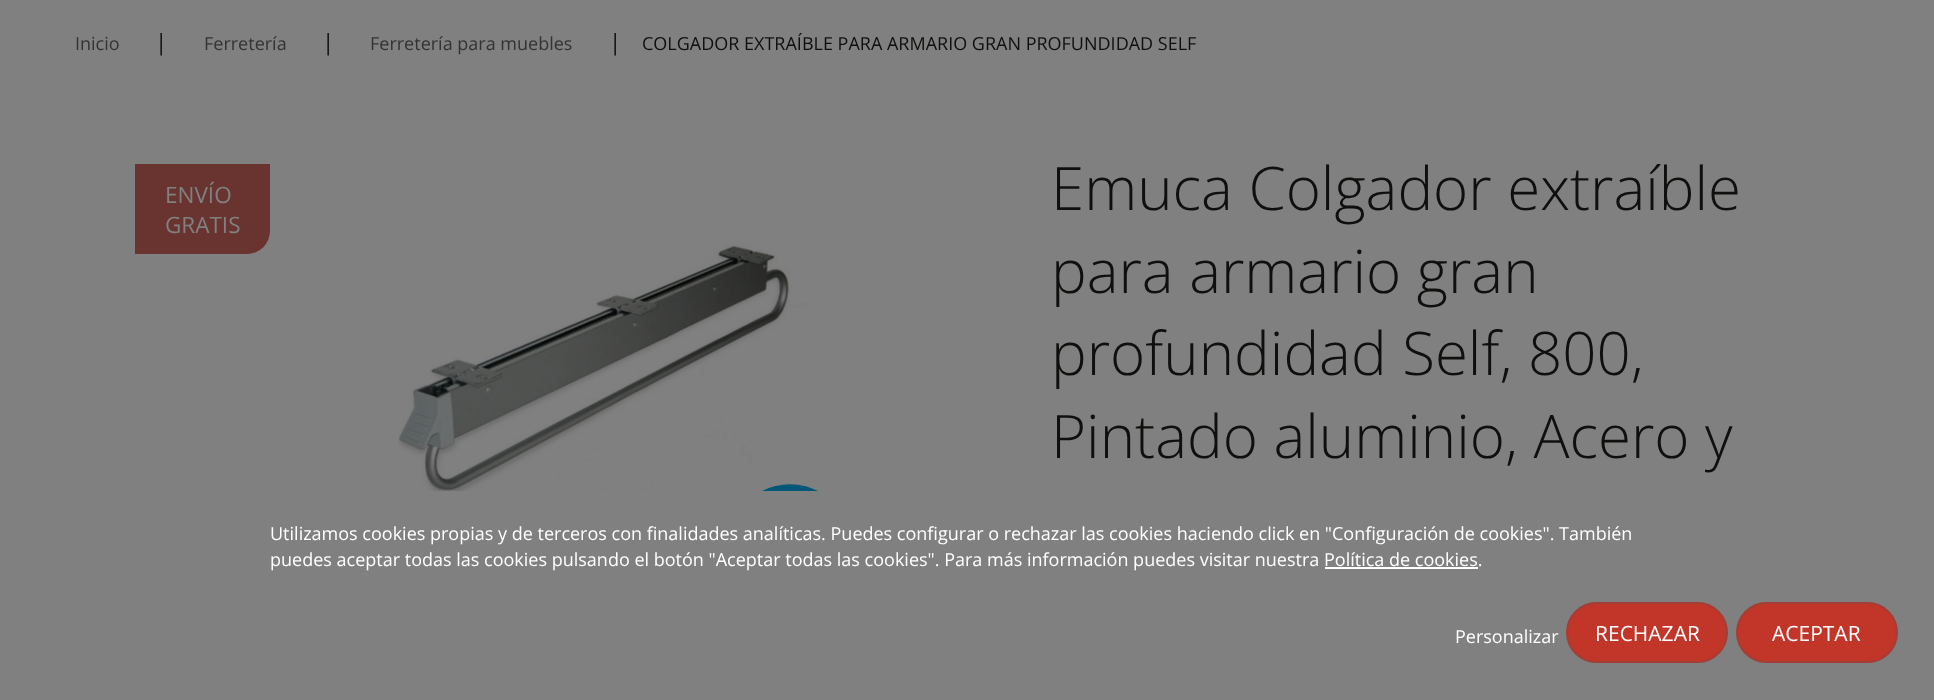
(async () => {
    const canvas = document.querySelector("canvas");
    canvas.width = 1934;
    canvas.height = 700;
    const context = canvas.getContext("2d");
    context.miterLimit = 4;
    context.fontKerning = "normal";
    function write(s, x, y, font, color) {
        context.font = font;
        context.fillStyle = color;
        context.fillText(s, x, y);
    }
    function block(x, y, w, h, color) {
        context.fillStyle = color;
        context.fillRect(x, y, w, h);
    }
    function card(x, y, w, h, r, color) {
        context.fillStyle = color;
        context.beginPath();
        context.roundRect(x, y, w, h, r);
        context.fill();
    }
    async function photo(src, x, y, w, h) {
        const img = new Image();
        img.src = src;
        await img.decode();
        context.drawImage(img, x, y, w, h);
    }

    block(0, 0, 1934, 700, "rgb(128, 128, 128)");
    write("Inicio", 75, 50, "18px Open Sans", "rgb(51, 51, 51)");
    write("|", 155, 50, "22.5px Open Sans", "rgb(15, 15, 14)");
    write("Ferretería", 204, 50, "18px Open Sans", "rgb(51, 51, 51)");
    write("|", 322, 50, "22.5px Open Sans", "rgb(15, 15, 14)");
    write("Ferretería para muebles", 370, 50, "18px Open Sans", "rgb(51, 51, 51)");
    write("|", 609, 50, "22.5px Open Sans", "rgb(15, 15, 14)");
    write("COLGADOR EXTRAÍBLE PARA ARMARIO GRAN PROFUNDIDAD SELF", 642, 50, "18px Open Sans", "rgb(15, 15, 14)");
    context.fillStyle = "rgb(105, 52, 48)";
    context.beginPath();
    context.roundRect(135, 164, 135, 90, [0, 0, 23, 0]);
    context.fill();
    write("ENVÍO", 165, 203, "22.5px Open Sans", "rgb(128, 128, 128)");
    write("GRATIS", 165, 233, "22.5px Open Sans", "rgb(128, 128, 128)");
    await photo("media/1.png", 398, 234, 409, 257);
    context.fillStyle = "rgb(0, 86, 119)";
    context.beginPath();
    context.moveTo(762, 491);
    context.bezierCurveTo(791, 476, 828, 487, 843, 516);
    context.bezierCurveTo(859, 545, 848, 582, 818, 597);
    context.bezierCurveTo(789, 613, 753, 602, 737, 573);
    context.bezierCurveTo(722, 543, 733, 507, 762, 491);
    context.closePath();
    context.fill();
    write("Emuca Colgador extraíble", 1051, 210, "300 60px Open Sans", "rgb(15, 15, 14)");
    write("para armario gran", 1051, 293, "300 60px Open Sans", "rgb(15, 15, 14)");
    write("profundidad Self, 800,", 1051, 375, "300 60px Open Sans", "rgb(15, 15, 14)");
    write("Pintado aluminio, Acero y", 1051, 458, "300 60px Open Sans", "rgb(15, 15, 14)");
    block(730, 491, 121, 114, "rgb(128, 128, 128)");
    write("Utilizamos cookies propias y de terceros con finalidades analíticas. Puedes configurar o rechazar las cookies haciendo click en \"Configuración de cookies\". También", 270, 540, "18px Open Sans", "rgb(255, 255, 255)");
    write("puedes aceptar todas las cookies pulsando el botón \"Aceptar todas las cookies\". Para más información puedes visitar nuestra Política de cookies.", 270, 566, "18px Open Sans", "rgb(255, 255, 255)");
    block(1325, 567, 153, 2, "rgb(255, 255, 255)");
    write("Personalizar", 1455, 643, "18px Open Sans", "rgb(255, 255, 255)");
    card(1566, 602, 162, 61, 30.5, "rgb(194, 53, 41)");
    context.beginPath();
    context.roundRect(1567, 603, 160, 59, 29.5);
    context.strokeStyle = "rgba(86, 86, 86, 0.3)";
    context.lineWidth = 2;
    context.stroke();
    write("RECHAZAR", 1595, 641, "21px Open Sans", "rgb(255, 255, 255)");
    card(1736, 602, 162, 61, 30.5, "rgb(194, 53, 41)");
    context.beginPath();
    context.roundRect(1737, 603, 160, 59, 29.5);
    context.stroke();
    write("ACEPTAR", 1772, 641, "21px Open Sans", "rgb(255, 255, 255)");
})();
